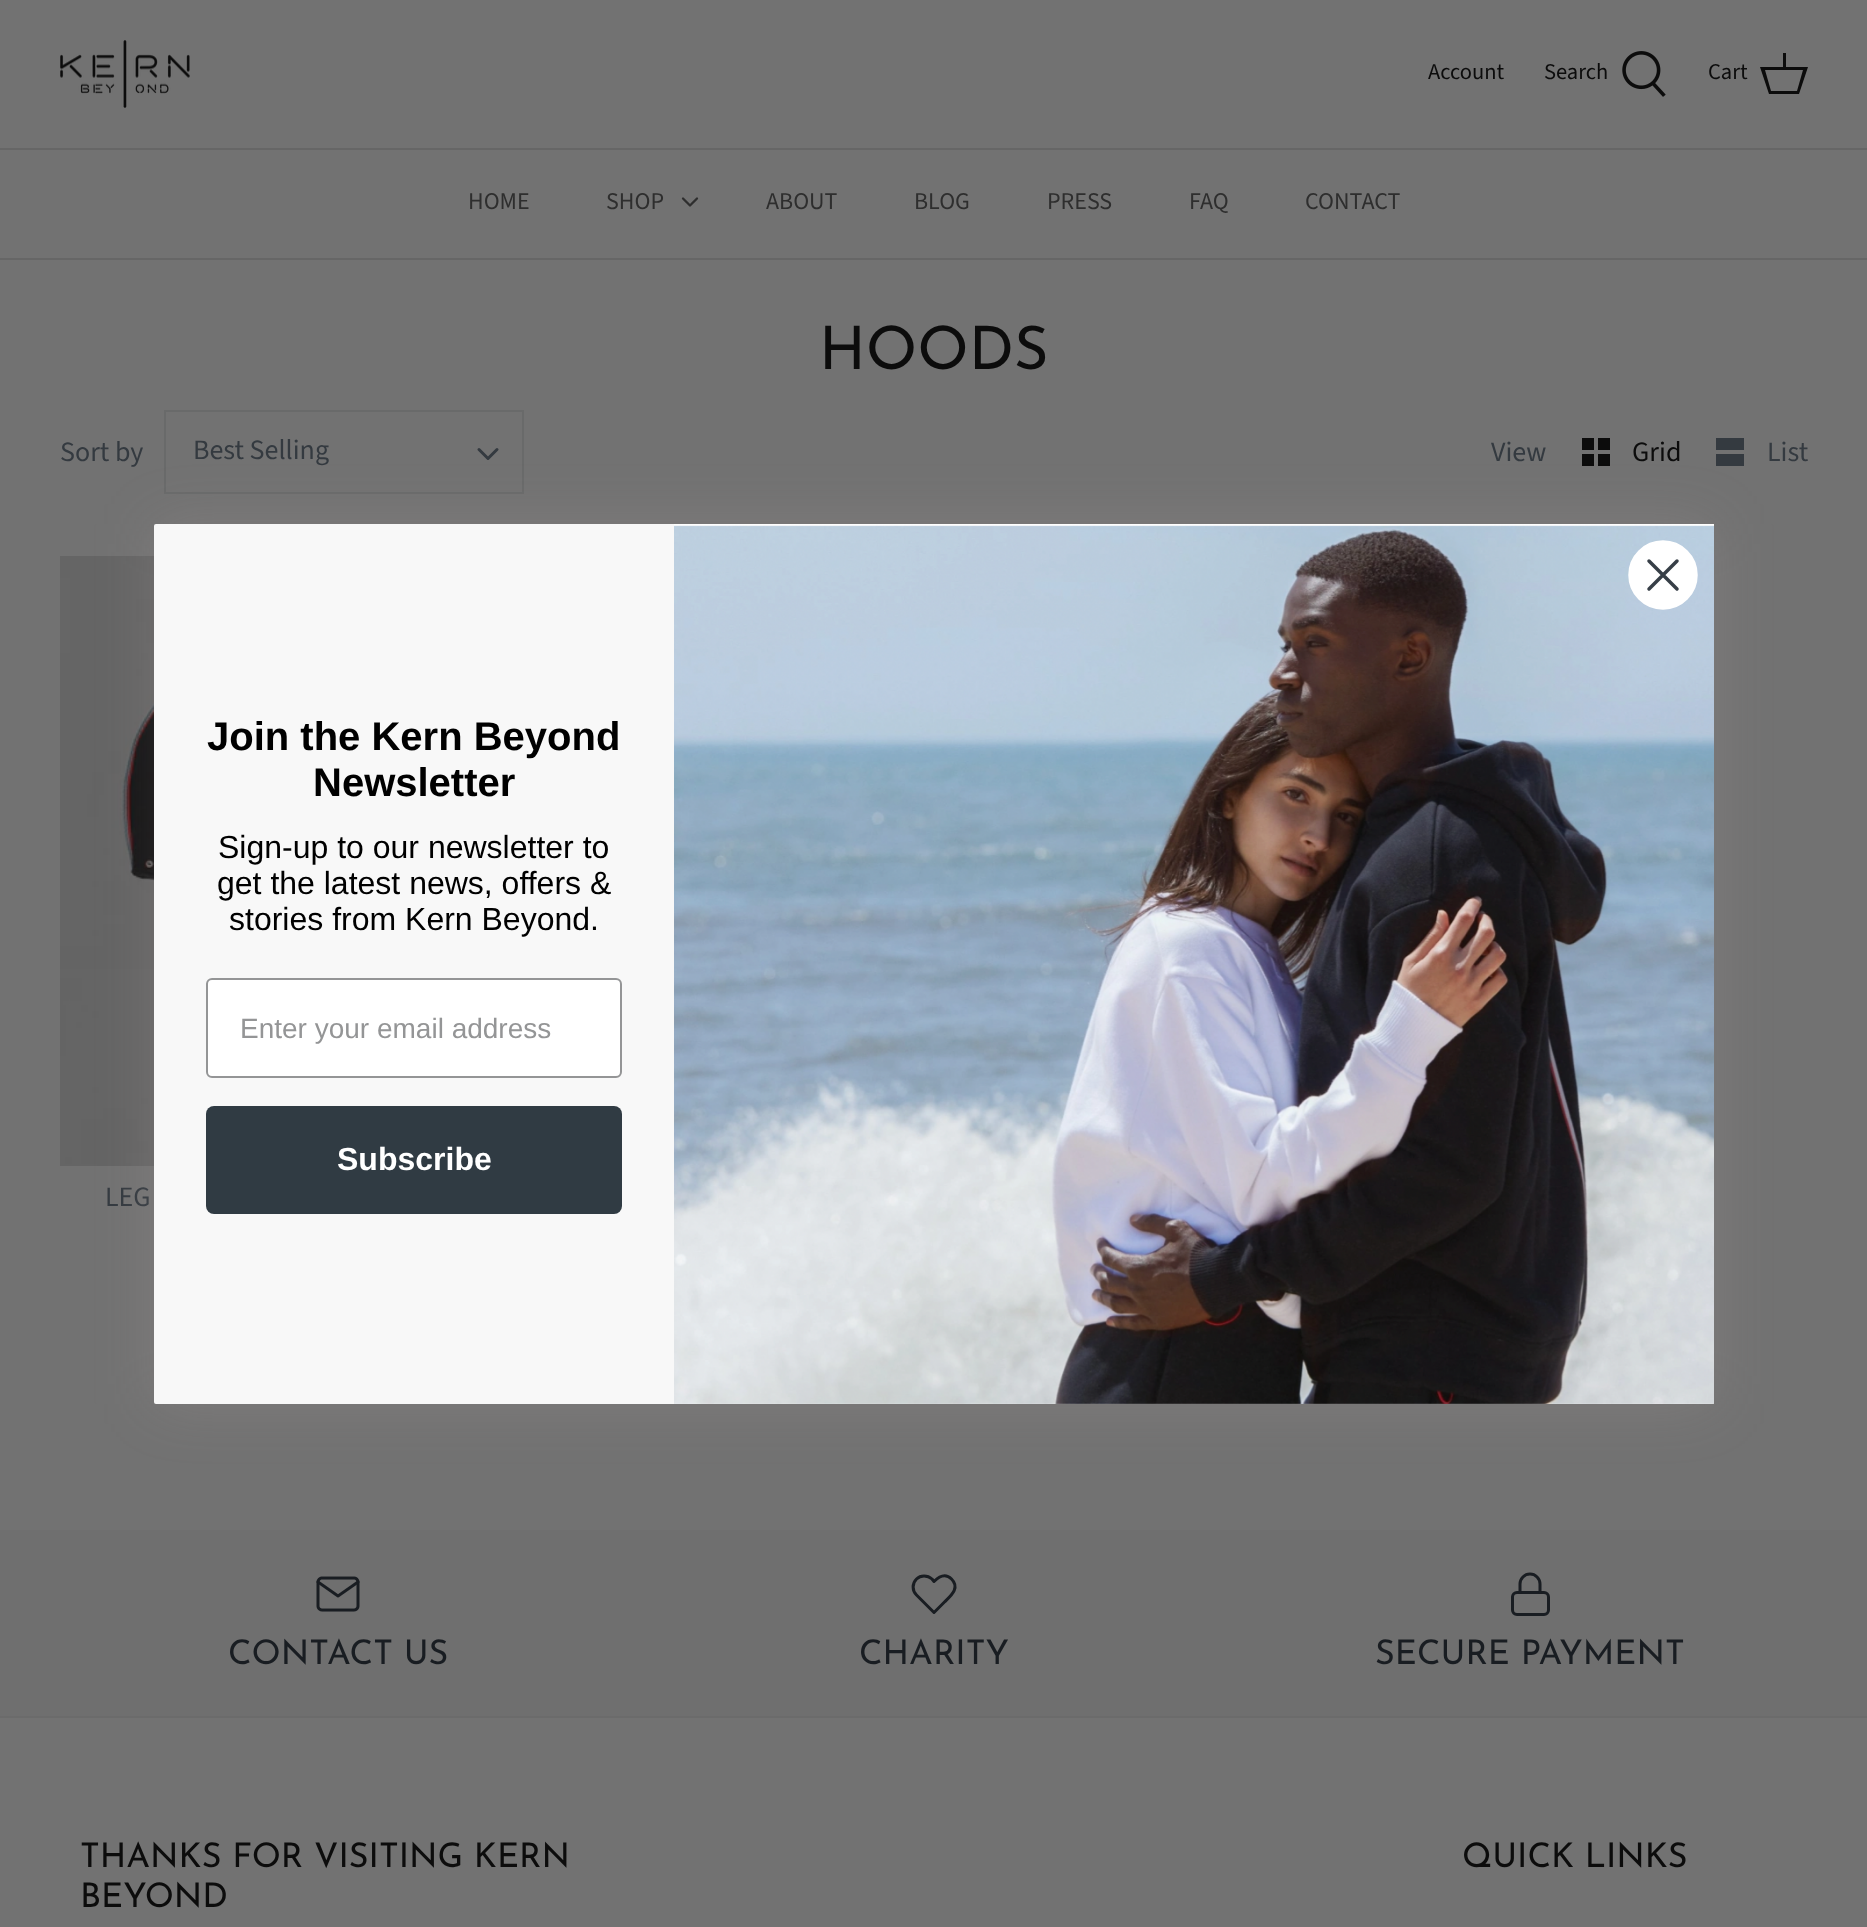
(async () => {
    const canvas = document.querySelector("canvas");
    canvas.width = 1867;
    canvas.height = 1927;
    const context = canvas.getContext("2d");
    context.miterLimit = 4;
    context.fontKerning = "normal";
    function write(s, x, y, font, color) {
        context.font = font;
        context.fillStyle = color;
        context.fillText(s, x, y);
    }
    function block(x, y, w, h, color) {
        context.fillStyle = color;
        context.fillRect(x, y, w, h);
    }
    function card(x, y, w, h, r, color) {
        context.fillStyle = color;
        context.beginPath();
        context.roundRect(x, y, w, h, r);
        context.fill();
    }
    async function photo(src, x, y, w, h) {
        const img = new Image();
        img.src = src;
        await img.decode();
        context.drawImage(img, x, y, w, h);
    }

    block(0, 0, 1867, 1927, "rgb(114, 114, 114)");
    block(0, 148, 1867, 2, "rgb(102, 102, 102)");
    await photo("media/1.png", 60, 40, 130, 68);
    write("Account", 1428, 79, "22.5px Source Sans Pro", "rgb(12, 12, 12)");
    write("Search", 1544, 79, "22.5px Source Sans Pro", "rgb(12, 12, 12)");
    await photo("media/2.png", 1622, 51, 44, 46);
    write("Cart", 1708, 79, "22.5px Source Sans Pro", "rgb(12, 12, 12)");
    context.beginPath();
    context.moveTo(1783, 67);
    context.lineTo(1783, 53);
    context.lineTo(1786, 53);
    context.lineTo(1786, 67);
    context.lineTo(1808, 67);
    context.lineTo(1799, 94);
    context.lineTo(1769, 94);
    context.lineTo(1760, 67);
    context.closePath();
    context.moveTo(1765, 70);
    context.lineTo(1771, 91);
    context.lineTo(1797, 91);
    context.lineTo(1803, 70);
    context.closePath();
    context.fill();
    block(0, 258, 1867, 2, "rgb(102, 102, 102)");
    write("HOME", 468, 209, "24px Source Sans Pro", "rgb(46, 46, 46)");
    write("SHOP", 606, 209, "24px Source Sans Pro", "rgb(46, 46, 46)");
    context.beginPath();
    context.moveTo(683, 198.5);
    context.lineTo(690, 205.5);
    context.lineTo(697, 198.5);
    context.strokeStyle = "rgb(46, 46, 46)";
    context.lineWidth = 2.3;
    context.lineCap = "round";
    context.lineJoin = "round";
    context.stroke();
    write("ABOUT", 766, 209, "24px Source Sans Pro", "rgb(46, 46, 46)");
    write("BLOG", 914, 209, "24px Source Sans Pro", "rgb(46, 46, 46)");
    write("PRESS", 1047, 209, "24px Source Sans Pro", "rgb(46, 46, 46)");
    write("FAQ", 1189, 209, "24px Source Sans Pro", "rgb(46, 46, 46)");
    write("CONTACT", 1305, 209, "24px Source Sans Pro", "rgb(46, 46, 46)");
    write("HOODS", 819, 369, "60px Josefin Sans", "rgb(12, 12, 12)");
    write("Sort by", 60, 461, "28px Source Sans Pro", "rgb(52, 58, 64)");
    context.strokeStyle = "rgb(105, 106, 106)";
    context.lineWidth = 2;
    context.lineJoin = "miter";
    context.strokeRect(165, 411, 358, 82);
    write("Best Selling", 193, 459, "28px Source Sans Pro", "rgb(52, 58, 64)");
    context.beginPath();
    context.moveTo(479, 449.5);
    context.lineTo(488, 458.5);
    context.lineTo(497, 449.5);
    context.strokeStyle = "rgb(52, 58, 64)";
    context.lineWidth = 3;
    context.lineJoin = "round";
    context.stroke();
    write("View", 1491, 461, "28px Source Sans Pro", "rgb(52, 58, 64)");
    block(1582, 438, 12, 12, "rgb(12, 12, 12)");
    block(1598, 438, 12, 12, "rgb(12, 12, 12)");
    write("Grid", 1632, 461, "28px Source Sans Pro", "rgb(12, 12, 12)");
    block(1582, 454, 12, 12, "rgb(12, 12, 12)");
    block(1598, 454, 12, 12, "rgb(12, 12, 12)");
    block(1716, 438, 28, 12, "rgb(52, 58, 64)");
    write("List", 1767, 461, "28px Source Sans Pro", "rgb(52, 58, 64)");
    block(1716, 454, 28, 12, "rgb(52, 58, 64)");
    await photo("media/3.png", 60, 556, 94, 610);
    write("LEG", 105, 1206, "28px Source Sans Pro", "rgb(52, 58, 64)");
    context.fillStyle = "rgba(205, 189, 189, 0.15)";
    context.filter = "blur(30px)";
    context.beginPath();
    context.roundRect(154, 524, 1560, 880, 2);
    context.fill();
    context.filter = "none";
    card(154, 524, 1560, 880, 2, "rgb(248, 248, 248)");
    await photo("media/4.png", 674, 524, 1040, 880);
    context.fillStyle = "rgb(255, 255, 255)";
    context.beginPath();
    context.arc(1663, 575, 33, 0, Math.PI * 2);
    context.fill();
    context.strokeStyle = "rgb(255, 255, 255)";
    context.lineWidth = 3.5;
    context.stroke();
    context.beginPath();
    context.moveTo(1649, 561);
    context.lineTo(1677, 589);
    context.moveTo(1649, 589);
    context.lineTo(1677, 561);
    context.closePath();
    context.strokeStyle = "rgb(55, 63, 71)";
    context.stroke();
    write("Join the Kern Beyond", 207, 750, "bold 40px Liberation Sans", "rgb(0, 0, 0)");
    write("Newsletter", 313, 796, "bold 40px Liberation Sans", "rgb(0, 0, 0)");
    write("Sign-up to our newsletter to", 218, 858, "32px Liberation Sans", "rgb(0, 0, 0)");
    write("get the latest news, offers &", 217, 894, "32px Liberation Sans", "rgb(0, 0, 0)");
    write("stories from Kern Beyond.", 229, 930, "32px Liberation Sans", "rgb(0, 0, 0)");
    context.fillStyle = "rgb(255, 255, 255)";
    context.beginPath();
    context.roundRect(207, 979, 414, 98, 5);
    context.fill();
    context.strokeStyle = "rgb(148, 149, 150)";
    context.lineWidth = 2;
    context.lineJoin = "miter";
    context.stroke();
    write("Enter your email address", 240, 1038, "28px Liberation Sans", "rgb(148, 149, 150)");
    card(206, 1106, 416, 108, 8, "rgb(48, 59, 67)");
    write("Subscribe", 337, 1170, "bold 32px Liberation Sans", "rgb(255, 255, 255)");
    block(0, 1530, 1867, 186, "rgb(111, 111, 111)");
    await photo("media/5.png", 316, 1576, 44, 36);
    write("CONTACT US", 228, 1664, "34px Josefin Sans", "rgb(25, 29, 34)");
    context.beginPath();
    context.moveTo(951.5, 1579);
    context.bezierCurveTo(945.5, 1573, 939, 1576.5, 934, 1581.5);
    context.lineTo(932, 1579);
    context.bezierCurveTo(927.5, 1575, 920.5, 1575, 916.5, 1579);
    context.bezierCurveTo(912, 1583.5, 912, 1590.5, 916.5, 1595);
    context.lineTo(934, 1612.5);
    context.lineTo(944.5, 1602);
    context.bezierCurveTo(950.5, 1596, 960.5, 1588, 951.5, 1579);
    context.closePath();
    context.strokeStyle = "rgb(25, 29, 34)";
    context.lineWidth = 3;
    context.lineJoin = "round";
    context.stroke();
    write("CHARITY", 859, 1664, "34px Josefin Sans", "rgb(25, 29, 34)");
    context.beginPath();
    context.roundRect(1512.5, 1592.5, 36, 22, 4.5);
    context.lineJoin = "miter";
    context.stroke();
    context.beginPath();
    context.moveTo(1520, 1592);
    context.lineTo(1520, 1584);
    context.bezierCurveTo(1520, 1578.5, 1524.5, 1574, 1530, 1574);
    context.bezierCurveTo(1535.5, 1574, 1540, 1578.5, 1540, 1584);
    context.lineTo(1540, 1592);
    context.lineJoin = "round";
    context.stroke();
    write("SECURE PAYMENT", 1375, 1664, "34px Josefin Sans", "rgb(25, 29, 34)");
    block(0, 1716, 1867, 2, "rgb(107, 107, 107)");
    write("THANKS FOR VISITING KERN", 80, 1867, "34px Josefin Sans", "rgb(12, 12, 12)");
    write("BEYOND", 80, 1907, "34px Josefin Sans", "rgb(12, 12, 12)");
    write("QUICK LINKS", 1462, 1867, "34px Josefin Sans", "rgb(12, 12, 12)");
})();
